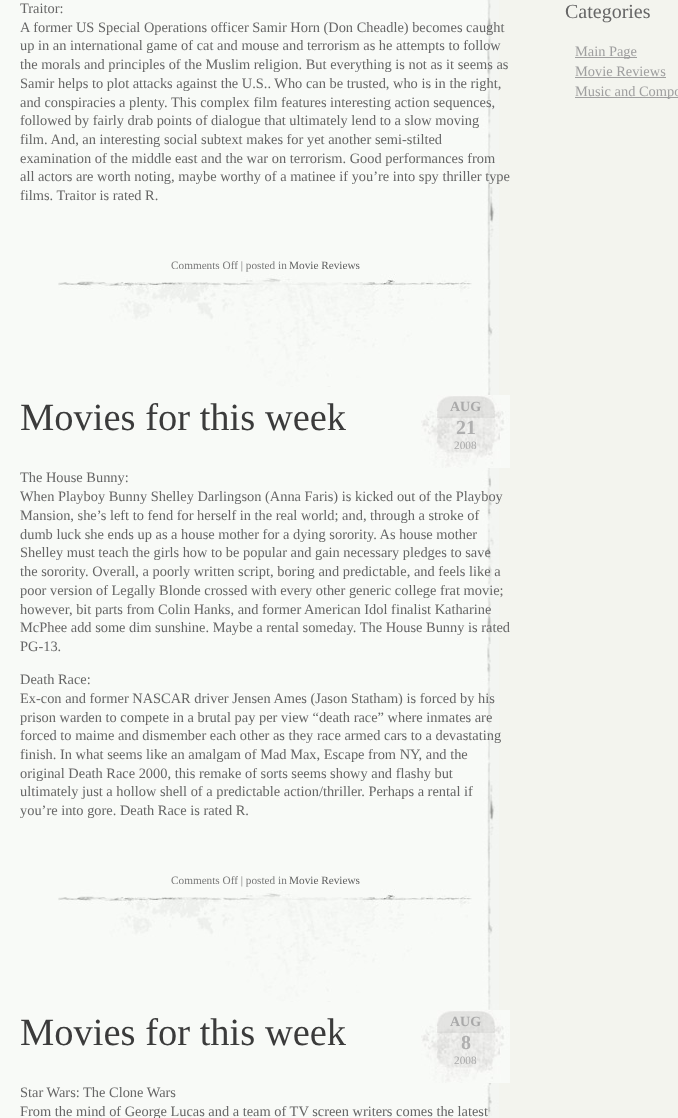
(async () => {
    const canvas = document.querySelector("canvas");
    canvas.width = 678;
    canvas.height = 1118;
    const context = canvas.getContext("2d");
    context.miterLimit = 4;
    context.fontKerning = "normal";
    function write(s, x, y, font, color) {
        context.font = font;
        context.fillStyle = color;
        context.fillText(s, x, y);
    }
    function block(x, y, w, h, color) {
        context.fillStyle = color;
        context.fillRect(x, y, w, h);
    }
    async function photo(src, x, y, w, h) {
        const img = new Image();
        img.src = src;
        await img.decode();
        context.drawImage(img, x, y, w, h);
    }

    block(0, 0, 678, 1118, "rgb(243, 244, 238)");
    await photo("media/1.png", 0, 0, 499, 1118);
    write("Traitor:", 20, 13, "14.4px Liberation Serif", "rgb(102, 102, 102)");
    write("A former US Special Operations officer Samir Horn (Don Cheadle) becomes caught", 20, 32, "14.4px Liberation Serif", "rgb(102, 102, 102)");
    write("up in an international game of cat and mouse and terrorism as he attempts to follow", 20, 50, "14.4px Liberation Serif", "rgb(102, 102, 102)");
    write("the morals and principles of the Muslim religion. But everything is not as it seems as", 20, 69, "14.4px Liberation Serif", "rgb(102, 102, 102)");
    write("Samir helps to plot attacks against the U.S.. Who can be trusted, who is in the right,", 20, 88, "14.4px Liberation Serif", "rgb(102, 102, 102)");
    write("and conspiracies a plenty. This complex film features interesting action sequences,", 20, 107, "14.4px Liberation Serif", "rgb(102, 102, 102)");
    write("followed by fairly drab points of dialogue that ultimately lend to a slow moving", 20, 125, "14.4px Liberation Serif", "rgb(102, 102, 102)");
    write("film. And, an interesting social subtext makes for yet another semi-stilted", 20, 144, "14.4px Liberation Serif", "rgb(102, 102, 102)");
    write("examination of the middle east and the war on terrorism. Good performances from", 20, 163, "14.4px Liberation Serif", "rgb(102, 102, 102)");
    write("all actors are worth noting, maybe worthy of a matinee if you’re into spy thriller type", 20, 181, "14.4px Liberation Serif", "rgb(102, 102, 102)");
    write("films. Traitor is rated R.", 20, 200, "14.4px Liberation Serif", "rgb(102, 102, 102)");
    write("Comments Off | posted in", 171, 269, "11.25px Liberation Serif", "rgb(121, 121, 121)");
    write("Movie Reviews", 289, 269, "11.25px Liberation Serif", "rgb(95, 95, 95)");
    await photo("media/2.png", 58, 274, 414, 113);
    write("Movies for this week", 20, 430, "38.5px Liberation Serif", "rgb(59, 59, 59)");
    await photo("media/3.png", 421, 395, 89, 73);
    write("AUG", 450, 411, "bold 14px Liberation Serif", "rgb(169, 169, 169)");
    write("21", 456, 434, "bold 20px Liberation Serif", "rgb(175, 175, 175)");
    write("2008", 454, 449, "11.25px Liberation Serif", "rgb(169, 169, 169)");
    write("The House Bunny:", 20, 482, "14.4px Liberation Serif", "rgb(102, 102, 102)");
    write("When Playboy Bunny Shelley Darlingson (Anna Faris) is kicked out of the Playboy", 20, 501, "14.4px Liberation Serif", "rgb(102, 102, 102)");
    write("Mansion, she’s left to fend for herself in the real world; and, through a stroke of", 20, 520, "14.4px Liberation Serif", "rgb(102, 102, 102)");
    write("dumb luck she ends up as a house mother for a dying sorority. As house mother", 20, 539, "14.4px Liberation Serif", "rgb(102, 102, 102)");
    write("Shelley must teach the girls how to be popular and gain necessary pledges to save", 20, 557, "14.4px Liberation Serif", "rgb(102, 102, 102)");
    write("the sorority. Overall, a poorly written script, boring and predictable, and feels like a", 20, 576, "14.4px Liberation Serif", "rgb(102, 102, 102)");
    write("poor version of Legally Blonde crossed with every other generic college frat movie;", 20, 595, "14.4px Liberation Serif", "rgb(102, 102, 102)");
    write("however, bit parts from Colin Hanks, and former American Idol finalist Katharine", 20, 614, "14.4px Liberation Serif", "rgb(102, 102, 102)");
    write("McPhee add some dim sunshine. Maybe a rental someday. The House Bunny is rated", 20, 632, "14.4px Liberation Serif", "rgb(102, 102, 102)");
    write("PG-13.", 20, 651, "14.4px Liberation Serif", "rgb(102, 102, 102)");
    write("Death Race:", 20, 684, "14.4px Liberation Serif", "rgb(102, 102, 102)");
    write("Ex-con and former NASCAR driver Jensen Ames (Jason Statham) is forced by his", 20, 703, "14.4px Liberation Serif", "rgb(102, 102, 102)");
    write("prison warden to compete in a brutal pay per view “death race” where inmates are", 20, 722, "14.4px Liberation Serif", "rgb(102, 102, 102)");
    write("forced to maime and dismember each other as they race armed cars to a devastating", 20, 740, "14.4px Liberation Serif", "rgb(102, 102, 102)");
    write("finish. In what seems like an amalgam of Mad Max, Escape from NY, and the", 20, 759, "14.4px Liberation Serif", "rgb(102, 102, 102)");
    write("original Death Race 2000, this remake of sorts seems showy and flashy but", 20, 778, "14.4px Liberation Serif", "rgb(102, 102, 102)");
    write("ultimately just a hollow shell of a predictable action/thriller. Perhaps a rental if", 20, 796, "14.4px Liberation Serif", "rgb(102, 102, 102)");
    write("you’re into gore. Death Race is rated R.", 20, 815, "14.4px Liberation Serif", "rgb(102, 102, 102)");
    write("Comments Off | posted in", 171, 884, "11.25px Liberation Serif", "rgb(121, 121, 121)");
    write("Movie Reviews", 289, 884, "11.25px Liberation Serif", "rgb(95, 95, 95)");
    await photo("media/2.png", 58, 889, 414, 113);
    write("Movies for this week", 20, 1045, "38.5px Liberation Serif", "rgb(59, 59, 59)");
    await photo("media/3.png", 421, 1010, 89, 73);
    write("AUG", 450, 1026, "bold 14px Liberation Serif", "rgb(169, 169, 169)");
    write("8", 461, 1049, "bold 20px Liberation Serif", "rgb(175, 175, 175)");
    write("2008", 454, 1064, "11.25px Liberation Serif", "rgb(169, 169, 169)");
    write("Star Wars: The Clone Wars", 20, 1097, "14.4px Liberation Serif", "rgb(102, 102, 102)");
    write("From the mind of George Lucas and a team of TV screen writers comes the latest", 20, 1116, "14.4px Liberation Serif", "rgb(102, 102, 102)");
    write("Categories", 565, 18, "20px Liberation Serif", "rgb(102, 102, 102)");
    block(575, 57, 62, 1, "rgb(159, 159, 159)");
    write("Main Page", 575, 56, "14.4px Liberation Serif", "rgb(159, 159, 159)");
    write("Movie Reviews", 575, 76, "14.4px Liberation Serif", "rgb(159, 159, 159)");
    block(575, 77, 91, 1, "rgb(159, 159, 159)");
    block(575, 97, 103, 1, "rgb(159, 159, 159)");
    write("Music and Compo", 575, 96, "14.4px Liberation Serif", "rgb(159, 159, 159)");
})();
